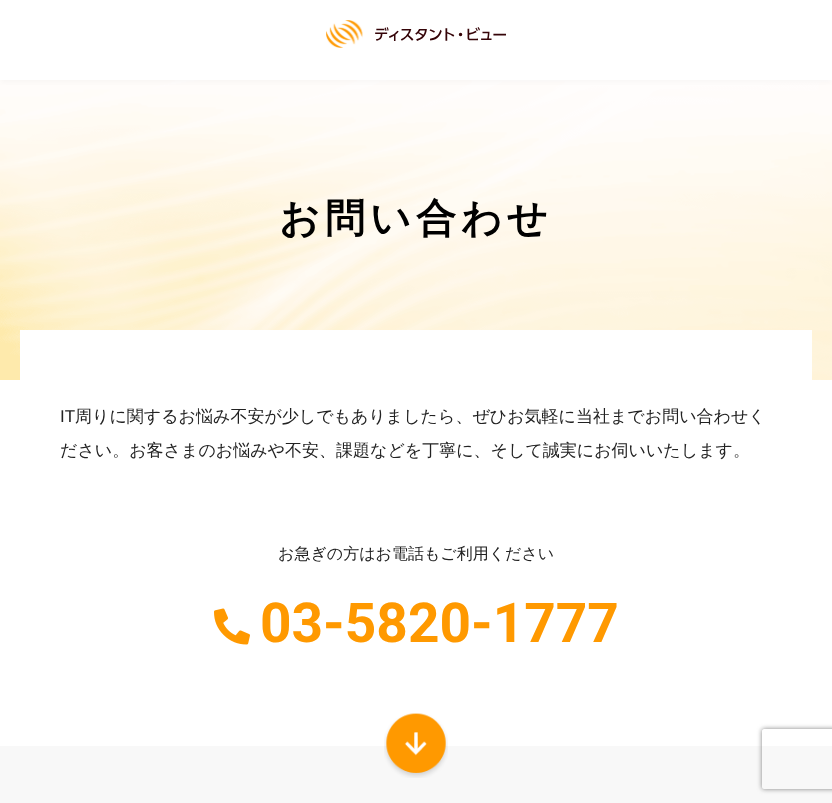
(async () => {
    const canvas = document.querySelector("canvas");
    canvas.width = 832;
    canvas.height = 803;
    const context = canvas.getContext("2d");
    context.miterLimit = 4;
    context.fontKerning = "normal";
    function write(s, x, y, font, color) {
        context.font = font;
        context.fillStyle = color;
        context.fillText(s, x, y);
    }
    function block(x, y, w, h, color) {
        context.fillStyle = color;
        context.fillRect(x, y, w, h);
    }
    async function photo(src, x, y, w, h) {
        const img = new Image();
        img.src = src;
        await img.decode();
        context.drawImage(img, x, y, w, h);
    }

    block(0, 0, 832, 803, "rgb(255, 255, 255)");
    context.save();
    context.beginPath();
    context.rect(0, 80, 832, 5);
    context.clip();
    context.fillStyle = "rgba(0, 0, 0, 0.16)";
    context.filter = "blur(3px)";
    context.beginPath();
    context.rect(1, 4, 830, 78);
    context.fill();
    context.filter = "none";
    context.restore();
    await photo("media/1.png", 326, 20, 180, 28);
    await photo("media/2.png", 0, 80, 832, 300);
    context.letterSpacing = "5px";
    write("お問い合わせ", 279, 232, "bold 40px WenQuanYi Zen Hei", "rgb(0, 0, 0)");
    block(20, 330, 792, 50, "rgb(255, 255, 255)");
    context.letterSpacing = "0px";
    write("IT", 60, 422, "17px Liberation Sans", "rgb(34, 34, 34)");
    write("周りに関するお悩み不安が少しでもありましたら、ぜひお気軽に当社までお問い合わせく", 75, 422, "500 17px WenQuanYi Zen Hei", "rgb(34, 34, 34)");
    write("ださい。お客さまのお悩みや不安、課題などを丁寧に、そして誠実にお伺いいたします。", 60, 456, "500 17px WenQuanYi Zen Hei", "rgb(34, 34, 34)");
    write("お急ぎの方はお電話もご利用ください", 278, 559, "500 16px WenQuanYi Zen Hei", "rgb(34, 34, 34)");
    await photo("media/3.png", 214, 608, 36, 37);
    write("03-5820-1777", 260, 642, "bold 55px Roboto", "rgb(255, 153, 0)");
    block(0, 746, 832, 57, "rgb(248, 248, 248)");
    await photo("media/4.png", 384, 713, 64, 65);
    context.save();
    context.beginPath();
    context.moveTo(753, 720);
    context.lineTo(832, 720);
    context.lineTo(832, 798);
    context.lineTo(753, 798);
    context.closePath();
    context.moveTo(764, 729);
    context.lineTo(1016, 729);
    context.bezierCurveTo(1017, 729, 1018, 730, 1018, 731);
    context.lineTo(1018, 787);
    context.bezierCurveTo(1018, 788, 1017, 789, 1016, 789);
    context.lineTo(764, 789);
    context.bezierCurveTo(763, 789, 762, 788, 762, 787);
    context.lineTo(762, 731);
    context.bezierCurveTo(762, 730, 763, 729, 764, 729);
    context.closePath();
    context.clip("evenodd");
    context.fillStyle = "rgb(128, 128, 128)";
    context.filter = "blur(2.5px)";
    context.beginPath();
    context.roundRect(762, 729, 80, 60, 2);
    context.fill();
    context.filter = "none";
    context.restore();
})();
